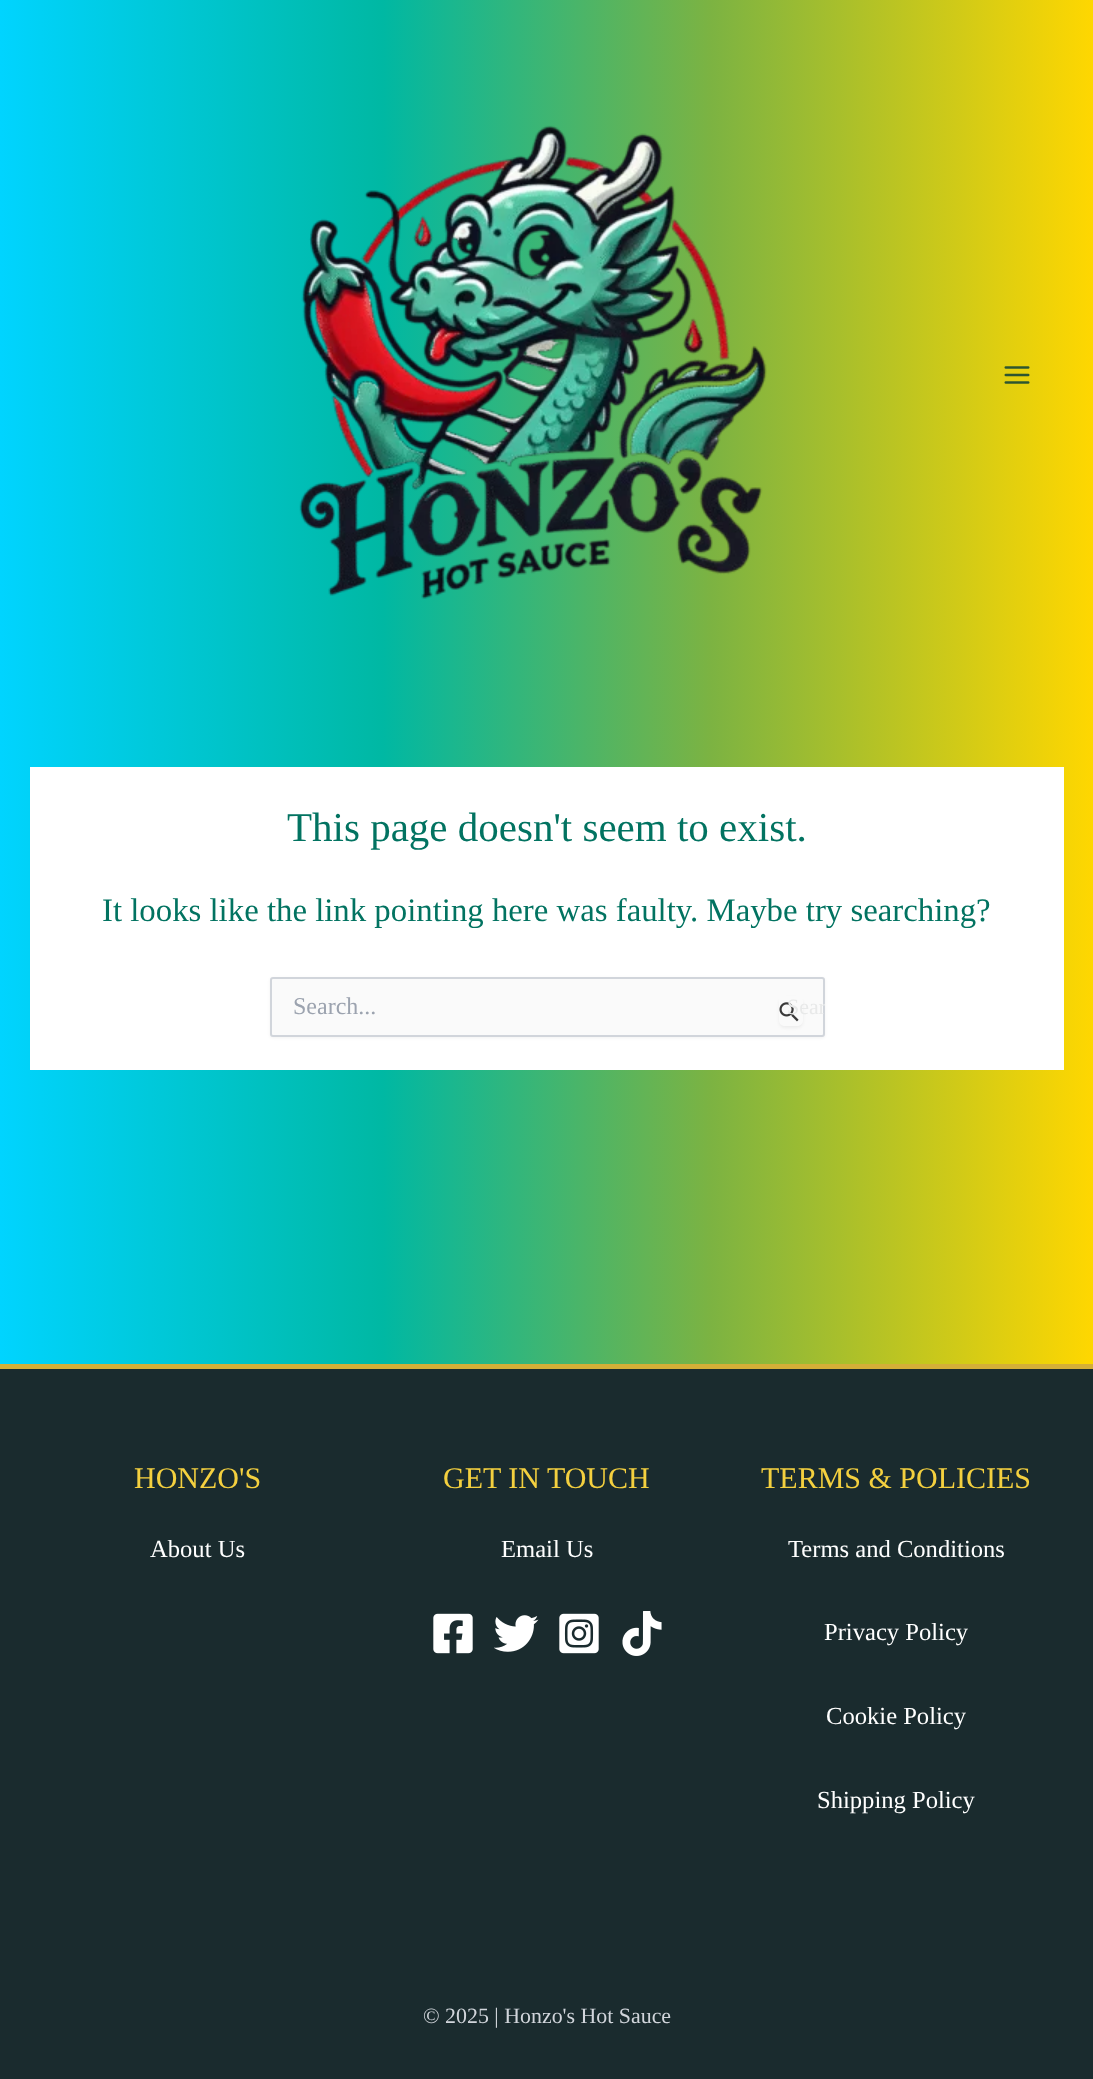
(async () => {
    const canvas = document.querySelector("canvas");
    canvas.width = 1093;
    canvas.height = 2079;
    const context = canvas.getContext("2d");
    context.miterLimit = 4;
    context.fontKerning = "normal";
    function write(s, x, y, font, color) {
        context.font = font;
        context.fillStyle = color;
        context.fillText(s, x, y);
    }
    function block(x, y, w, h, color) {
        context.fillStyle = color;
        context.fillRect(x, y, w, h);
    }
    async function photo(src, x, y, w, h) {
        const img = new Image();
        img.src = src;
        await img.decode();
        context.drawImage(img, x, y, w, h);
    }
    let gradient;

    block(0, 0, 1093, 2079, "rgb(255, 255, 255)");
    gradient = context.createLinearGradient(0, 1040, 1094, 1040);
    gradient.addColorStop(0, "rgb(0, 212, 255)");
    gradient.addColorStop(0.35, "rgb(0, 184, 163)");
    gradient.addColorStop(0.65, "rgb(124, 179, 66)");
    gradient.addColorStop(1, "rgb(255, 215, 0)");
    context.fillStyle = gradient;
    context.fillRect(0, 0, 1093, 1364);
    await photo("media/1.png", 299, 125, 468, 474);
    await photo("media/2.png", 1004, 366, 26, 18);
    block(30, 767, 1034, 303, "rgb(255, 255, 255)");
    write("This page doesn't seem to exist.", 287, 841, "41px Liberation Serif", "rgb(2, 115, 97)");
    write("It looks like the link pointing here was faulty. Maybe try searching?", 102, 921, "32.8px Liberation Serif", "rgb(2, 115, 97)");
    context.fillStyle = "rgba(0, 0, 0, 0.05)";
    context.filter = "blur(1.5px)";
    context.beginPath();
    context.roundRect(270, 978, 555, 60, 3);
    context.fill();
    context.filter = "none";
    context.fillStyle = "rgb(250, 250, 250)";
    context.beginPath();
    context.roundRect(271, 978, 553, 58, 2);
    context.fill();
    context.strokeStyle = "rgb(209, 213, 219)";
    context.lineWidth = 2;
    context.stroke();
    write("Search...", 293, 1014, "24px Liberation Serif", "rgb(156, 163, 175)");
    context.save();
    context.beginPath();
    context.moveTo(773, 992);
    context.lineTo(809, 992);
    context.lineTo(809, 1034);
    context.lineTo(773, 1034);
    context.closePath();
    context.moveTo(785, 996);
    context.lineTo(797, 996);
    context.bezierCurveTo(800.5, 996, 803, 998.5, 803, 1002);
    context.lineTo(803, 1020);
    context.bezierCurveTo(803, 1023.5, 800.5, 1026, 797, 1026);
    context.lineTo(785, 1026);
    context.bezierCurveTo(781.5, 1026, 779, 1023.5, 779, 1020);
    context.lineTo(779, 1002);
    context.bezierCurveTo(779, 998.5, 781.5, 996, 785, 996);
    context.closePath();
    context.clip("evenodd");
    context.fillStyle = "rgba(0, 0, 0, 0.05)";
    context.filter = "blur(1.5px)";
    context.beginPath();
    context.roundRect(779, 998, 24, 30, 6);
    context.fill();
    context.filter = "none";
    context.restore();
    await photo("media/3.png", 779, 1002, 20, 20);
    context.save();
    context.beginPath();
    context.roundRect(758, 977, 67, 60, 3);
    context.clip();
    write("Sear", 787, 1014, "21.9px Liberation Serif", "rgb(232, 233, 233)");
    context.restore();
    block(0, 1369, 1093, 710, "rgb(26, 43, 46)");
    block(0, 1364, 1093, 5, "rgb(212, 175, 55)");
    write("HONZO'S", 134, 1488, "30px Liberation Serif", "rgb(244, 208, 63)");
    write("About Us", 150, 1557, "24.6px Liberation Serif", "rgb(255, 255, 255)");
    write("GET IN TOUCH", 443, 1488, "30px Liberation Serif", "rgb(244, 208, 63)");
    write("Email Us", 501, 1557, "24.6px Liberation Serif", "rgb(255, 255, 255)");
    await photo("media/4.png", 433, 1613, 40, 41);
    await photo("media/5.png", 494, 1615, 45, 37);
    await photo("media/6.png", 559, 1613, 40, 41);
    await photo("media/7.png", 622, 1611, 40, 45);
    write("TERMS & POLICIES", 761, 1488, "30px Liberation Serif", "rgb(244, 208, 63)");
    write("Terms and Conditions", 788, 1557, "24.6px Liberation Serif", "rgb(255, 255, 255)");
    write("Privacy Policy", 824, 1640, "24.6px Liberation Serif", "rgb(255, 255, 255)");
    write("Cookie Policy", 826, 1724, "24.6px Liberation Serif", "rgb(255, 255, 255)");
    write("Shipping Policy", 817, 1808, "24.6px Liberation Serif", "rgb(255, 255, 255)");
    write("© 2025 | Honzo's Hot Sauce", 423, 2023, "21.9px Liberation Serif", "rgb(209, 213, 219)");
})();
